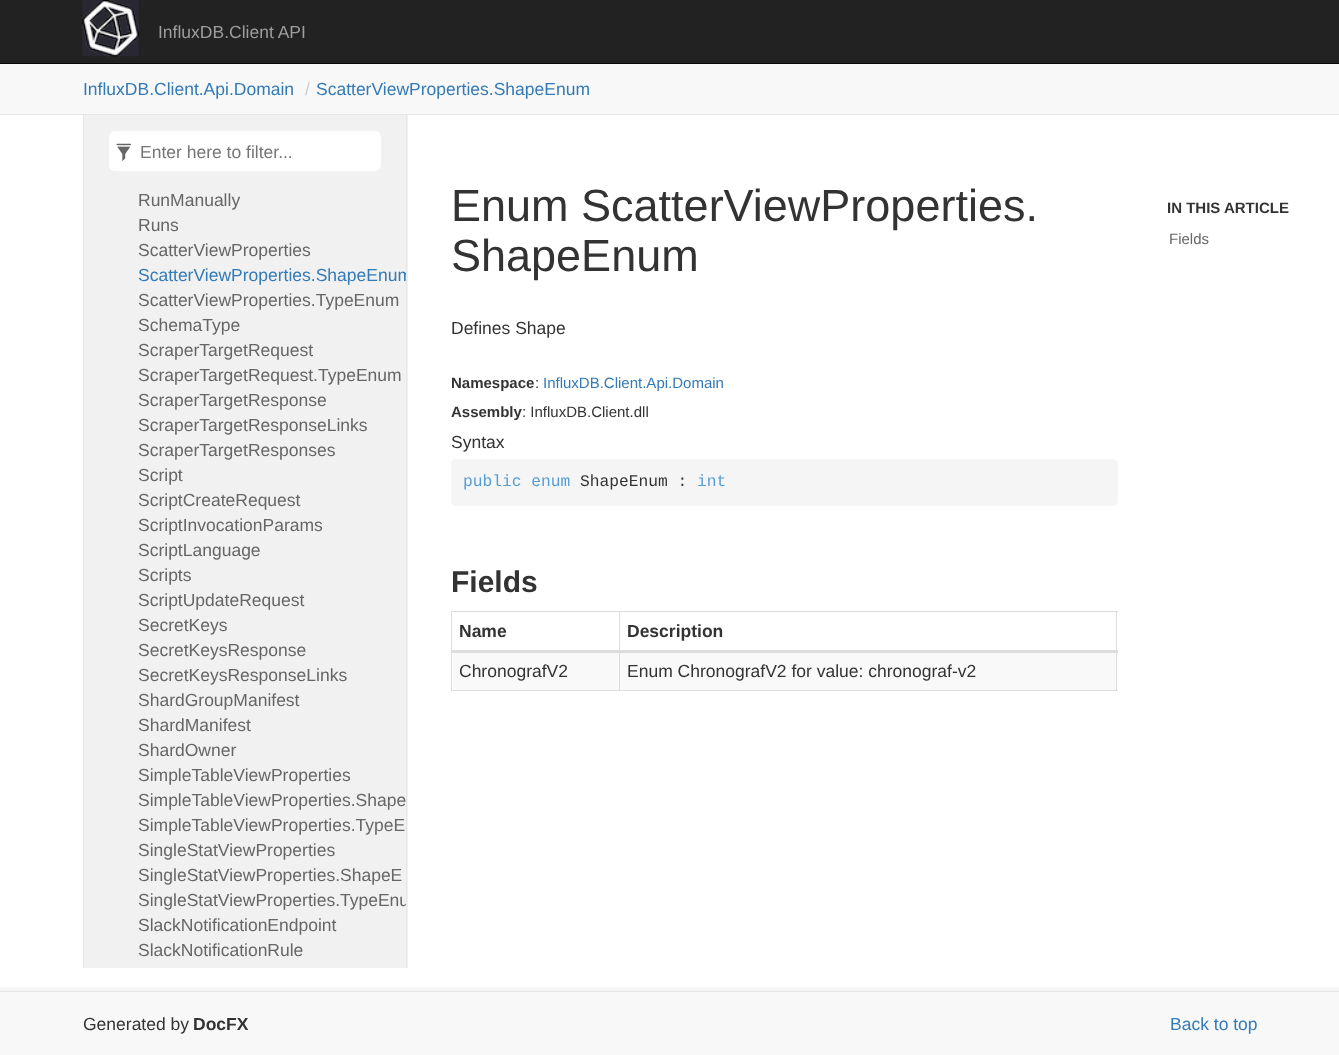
(async () => {
    const canvas = document.querySelector("canvas");
    canvas.width = 1339;
    canvas.height = 1055;
    const context = canvas.getContext("2d");
    context.miterLimit = 4;
    context.fontKerning = "normal";
    function write(s, x, y, font, color) {
        context.font = font;
        context.fillStyle = color;
        context.fillText(s, x, y);
    }
    function block(x, y, w, h, color) {
        context.fillStyle = color;
        context.fillRect(x, y, w, h);
    }
    function card(x, y, w, h, r, color) {
        context.fillStyle = color;
        context.beginPath();
        context.roundRect(x, y, w, h, r);
        context.fill();
    }
    async function photo(src, x, y, w, h) {
        const img = new Image();
        img.src = src;
        await img.decode();
        context.drawImage(img, x, y, w, h);
    }
    let gradient;

    block(0, 0, 1339, 1055, "rgb(255, 255, 255)");
    block(0, 0, 1339, 63, "rgb(34, 34, 34)");
    block(0, 63, 1339, 1, "rgb(8, 8, 8)");
    await photo("media/1.png", 82, 0, 57, 57);
    write("InfluxDB.Client API", 158, 38, "17.5px Liberation Sans", "rgb(157, 157, 157)");
    block(84, 115, 324, 73, "rgb(241, 241, 241)");
    block(406, 113, 1, 77, "rgb(231, 231, 231)");
    block(83, 113, 1, 855, "rgb(231, 231, 231)");
    block(0, 64, 1339, 50, "rgb(248, 248, 248)");
    block(0, 114, 1339, 1, "rgb(231, 231, 231)");
    write("InfluxDB.Client.Api.Domain", 83, 95, "17.5px Liberation Sans", "rgb(51, 122, 183)");
    write("/", 305, 95, "17.5px Liberation Sans", "rgb(204, 204, 204)");
    write("ScatterViewProperties.ShapeEnum", 316, 95, "17.5px Liberation Sans", "rgb(51, 122, 183)");
    card(109, 131, 272, 40, 6, "rgb(255, 255, 255)");
    await photo("media/2.png", 116, 143, 15, 19);
    write("Enter here to filter...", 140, 158, "17.5px Liberation Sans", "rgb(117, 117, 117)");
    block(84, 188, 324, 780, "rgb(241, 241, 241)");
    block(406, 188, 1, 780, "rgb(231, 231, 231)");
    write("RunManually", 138, 206, "17.5px Liberation Sans", "rgb(102, 102, 102)");
    write("Runs", 138, 231, "17.5px Liberation Sans", "rgb(102, 102, 102)");
    write("ScatterViewProperties", 138, 256, "17.5px Liberation Sans", "rgb(102, 102, 102)");
    context.save();
    context.beginPath();
    context.rect(96, 188, 310, 780);
    context.clip();
    write("ScatterViewProperties.ShapeEnum", 138, 281, "17.5px Liberation Sans", "rgb(51, 122, 183)");
    context.restore();
    write("ScatterViewProperties.TypeEnum", 138, 306, "17.5px Liberation Sans", "rgb(102, 102, 102)");
    write("SchemaType", 138, 331, "17.5px Liberation Sans", "rgb(102, 102, 102)");
    write("ScraperTargetRequest", 138, 356, "17.5px Liberation Sans", "rgb(102, 102, 102)");
    write("ScraperTargetRequest.TypeEnum", 138, 381, "17.5px Liberation Sans", "rgb(102, 102, 102)");
    write("ScraperTargetResponse", 138, 406, "17.5px Liberation Sans", "rgb(102, 102, 102)");
    write("ScraperTargetResponseLinks", 138, 431, "17.5px Liberation Sans", "rgb(102, 102, 102)");
    write("ScraperTargetResponses", 138, 456, "17.5px Liberation Sans", "rgb(102, 102, 102)");
    write("Script", 138, 481, "17.5px Liberation Sans", "rgb(102, 102, 102)");
    write("ScriptCreateRequest", 138, 506, "17.5px Liberation Sans", "rgb(102, 102, 102)");
    write("ScriptInvocationParams", 138, 531, "17.5px Liberation Sans", "rgb(102, 102, 102)");
    write("ScriptLanguage", 138, 556, "17.5px Liberation Sans", "rgb(102, 102, 102)");
    write("Scripts", 138, 581, "17.5px Liberation Sans", "rgb(102, 102, 102)");
    write("ScriptUpdateRequest", 138, 606, "17.5px Liberation Sans", "rgb(102, 102, 102)");
    write("SecretKeys", 138, 631, "17.5px Liberation Sans", "rgb(102, 102, 102)");
    write("SecretKeysResponse", 138, 656, "17.5px Liberation Sans", "rgb(102, 102, 102)");
    write("SecretKeysResponseLinks", 138, 681, "17.5px Liberation Sans", "rgb(102, 102, 102)");
    write("ShardGroupManifest", 138, 706, "17.5px Liberation Sans", "rgb(102, 102, 102)");
    write("ShardManifest", 138, 731, "17.5px Liberation Sans", "rgb(102, 102, 102)");
    write("ShardOwner", 138, 756, "17.5px Liberation Sans", "rgb(102, 102, 102)");
    write("SimpleTableViewProperties", 138, 781, "17.5px Liberation Sans", "rgb(102, 102, 102)");
    write("SimpleTableViewProperties.Shape", 138, 806, "17.5px Liberation Sans", "rgb(102, 102, 102)");
    write("SimpleTableViewProperties.TypeE", 138, 831, "17.5px Liberation Sans", "rgb(102, 102, 102)");
    write("SingleStatViewProperties", 138, 856, "17.5px Liberation Sans", "rgb(102, 102, 102)");
    write("SingleStatViewProperties.ShapeE", 138, 881, "17.5px Liberation Sans", "rgb(102, 102, 102)");
    context.save();
    context.beginPath();
    context.rect(96, 188, 310, 780);
    context.clip();
    write("SingleStatViewProperties.TypeEnu", 138, 906, "17.5px Liberation Sans", "rgb(102, 102, 102)");
    context.restore();
    write("SlackNotificationEndpoint", 138, 931, "17.5px Liberation Sans", "rgb(102, 102, 102)");
    write("SlackNotificationRule", 138, 956, "17.5px Liberation Sans", "rgb(102, 102, 102)");
    write("Enum ScatterViewProperties.", 451, 221, "45px Liberation Sans", "rgb(51, 51, 51)");
    write("ShapeEnum", 451, 271, "45px Liberation Sans", "rgb(51, 51, 51)");
    write("Defines Shape", 451, 334, "17.5px Liberation Sans", "rgb(51, 51, 51)");
    write("Namespace", 451, 388, "bold 15px Liberation Sans", "rgb(51, 51, 51)");
    write(":", 535, 388, "15px Liberation Sans", "rgb(51, 51, 51)");
    write("InfluxDB.Client.Api.Domain", 543, 388, "15px Liberation Sans", "rgb(51, 122, 183)");
    write("Assembly", 451, 417, "bold 15px Liberation Sans", "rgb(51, 51, 51)");
    write(": InfluxDB.Client.dll", 522, 417, "15px Liberation Sans", "rgb(51, 51, 51)");
    write("Syntax", 451, 448, "17.5px Liberation Sans", "rgb(51, 51, 51)");
    card(451, 459, 667, 47, 5, "rgb(245, 245, 245)");
    write("public enum", 463, 486, "16.25px Liberation Mono", "rgb(86, 156, 214)");
    write("ShapeEnum :", 580, 486, "16.25px Liberation Mono", "rgb(51, 51, 51)");
    write("int", 697, 486, "16.25px Liberation Mono", "rgb(86, 156, 214)");
    write("Fields", 451, 592, "bold 30px Liberation Sans", "rgb(51, 51, 51)");
    block(451, 611, 667, 1, "rgb(221, 221, 221)");
    block(1116, 611, 1, 80, "rgb(221, 221, 221)");
    block(451, 690, 667, 1, "rgb(221, 221, 221)");
    block(451, 611, 1, 80, "rgb(221, 221, 221)");
    write("Name", 459, 637, "bold 17.5px Liberation Sans", "rgb(51, 51, 51)");
    block(453, 653, 663, 37, "rgb(249, 249, 249)");
    block(619, 611, 1, 80, "rgb(221, 221, 221)");
    block(451, 650, 667, 3, "rgb(221, 221, 221)");
    write("Description", 627, 637, "bold 17.5px Liberation Sans", "rgb(51, 51, 51)");
    write("ChronografV2", 459, 677, "17.5px Liberation Sans", "rgb(51, 51, 51)");
    write("Enum ChronografV2 for value: chronograf-v2", 627, 677, "17.5px Liberation Sans", "rgb(51, 51, 51)");
    write("IN THIS ARTICLE", 1167, 213, "bold 15px Liberation Sans", "rgb(51, 51, 51)");
    write("Fields", 1169, 244, "15px Liberation Sans", "rgb(102, 102, 102)");
    gradient = context.createLinearGradient(670, 985, 670, 991);
    gradient.addColorStop(0, "rgb(255, 255, 255)");
    gradient.addColorStop(1, "rgb(242, 242, 242)");
    context.fillStyle = gradient;
    context.fillRect(0, 986, 1339, 5);
    block(0, 992, 1339, 63, "rgb(248, 248, 248)");
    block(0, 991, 1339, 1, "rgb(231, 231, 231)");
    write("Generated by", 83, 1030, "17.5px Liberation Sans", "rgb(51, 51, 51)");
    write("DocFX", 193, 1030, "bold 17.5px Liberation Sans", "rgb(51, 51, 51)");
    write("Back to top", 1170, 1030, "17.5px Liberation Sans", "rgb(51, 122, 183)");
})();
